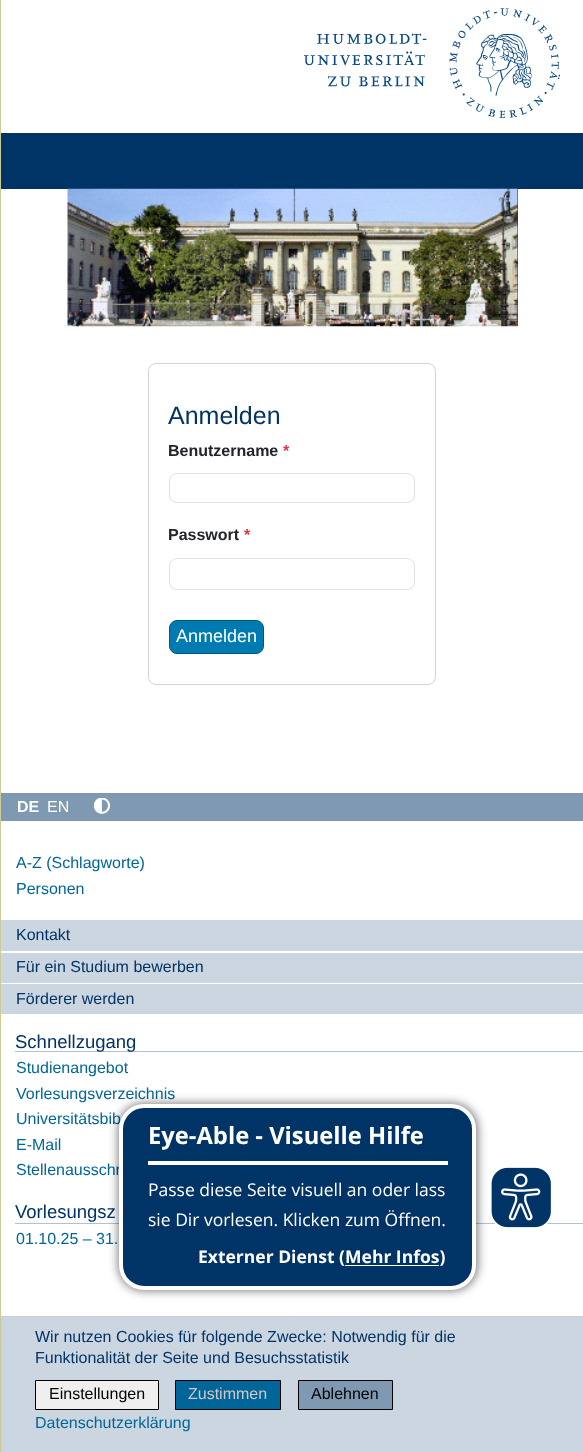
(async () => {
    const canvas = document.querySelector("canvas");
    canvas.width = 583;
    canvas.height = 1452;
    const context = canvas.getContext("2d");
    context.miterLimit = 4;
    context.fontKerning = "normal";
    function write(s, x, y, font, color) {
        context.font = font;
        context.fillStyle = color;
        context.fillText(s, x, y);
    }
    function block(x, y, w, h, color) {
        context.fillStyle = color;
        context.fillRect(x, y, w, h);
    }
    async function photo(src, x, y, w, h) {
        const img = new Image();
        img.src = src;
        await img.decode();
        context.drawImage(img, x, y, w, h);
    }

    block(0, 0, 583, 1452, "rgb(255, 255, 255)");
    await photo("media/1.png", 304, 8, 256, 110);
    block(1, 133, 582, 56, "rgb(0, 51, 102)");
    block(517, 189, 1, 137, "rgb(0, 51, 102)");
    await photo("media/2.png", 67, 188, 451, 139);
    block(0, 0, 1, 1452, "rgb(204, 204, 153)");
    context.beginPath();
    context.roundRect(148.5, 363.5, 287, 321, 7.5);
    context.strokeStyle = "rgb(210, 210, 210)";
    context.stroke();
    write("Anmelden", 168, 424, "25px Liberation Sans", "rgb(0, 51, 102)");
    write("Benutzername", 168, 456, "bold 16px Liberation Sans", "rgb(33, 37, 41)");
    write("*", 283, 456, "bold 16px Liberation Sans", "rgb(220, 53, 69)");
    context.beginPath();
    context.roundRect(169.5, 473.5, 245, 29, 7.5);
    context.strokeStyle = "rgb(222, 226, 230)";
    context.stroke();
    write("Passwort", 168, 540, "bold 16px Liberation Sans", "rgb(33, 37, 41)");
    write("*", 244, 540, "bold 16px Liberation Sans", "rgb(220, 53, 69)");
    context.beginPath();
    context.roundRect(169.5, 558.5, 245, 31, 7.5);
    context.stroke();
    context.fillStyle = "rgb(0, 123, 177)";
    context.beginPath();
    context.roundRect(169.5, 620.5, 94, 33, 7.5);
    context.fill();
    context.strokeStyle = "rgb(0, 88, 126)";
    context.stroke();
    write("Anmelden", 176, 642, "18px Liberation Sans", "rgb(255, 255, 255)");
    block(1, 793, 582, 28, "rgb(128, 153, 178)");
    write("DE", 17, 812, "bold 16px Liberation Sans", "rgb(255, 255, 255)");
    write("EN", 47, 812, "16px Liberation Sans", "rgb(255, 255, 255)");
    await photo("media/3.png", 94, 798, 16, 16);
    write("A-Z (Schlagworte)", 16, 868, "16px Liberation Sans", "rgb(0, 102, 153)");
    write("Personen", 16, 894, "16px Liberation Sans", "rgb(0, 102, 153)");
    block(1, 920, 582, 31, "rgb(204, 214, 224)");
    write("Kontakt", 16, 940, "16px Liberation Sans", "rgb(0, 51, 102)");
    block(1, 953, 582, 30, "rgb(204, 214, 224)");
    write("Für ein Studium bewerben", 16, 972, "16px Liberation Sans", "rgb(0, 51, 102)");
    block(1, 984, 582, 30, "rgb(204, 214, 224)");
    write("Förderer werden", 16, 1004, "16px Liberation Sans", "rgb(0, 51, 102)");
    block(15, 1051, 568, 1, "rgb(178, 193, 209)");
    write("Schnellzugang", 15, 1048, "18.5px Liberation Sans", "rgb(0, 51, 102)");
    write("Studienangebot", 16, 1073, "16px Liberation Sans", "rgb(0, 102, 153)");
    write("Vorlesungsverzeichnis", 16, 1099, "16px Liberation Sans", "rgb(0, 102, 153)");
    write("Universitätsbib", 16, 1124, "16px Liberation Sans", "rgb(0, 102, 153)");
    write("E-Mail", 16, 1150, "16px Liberation Sans", "rgb(0, 102, 153)");
    write("Stellenausschr", 16, 1175, "16px Liberation Sans", "rgb(0, 102, 153)");
    block(15, 1223, 568, 1, "rgb(178, 193, 209)");
    write("Vorlesungsz", 15, 1218, "18.5px Liberation Sans", "rgb(0, 51, 102)");
    write("01.10.25 – 31.", 16, 1244, "16px Liberation Sans", "rgb(0, 102, 153)");
    context.fillStyle = "rgba(0, 0, 0, 0.5)";
    context.filter = "blur(5px)";
    context.beginPath();
    context.roundRect(118, 1103, 360, 188, 26);
    context.fill();
    context.filter = "none";
    context.fillStyle = "rgb(0, 51, 102)";
    context.beginPath();
    context.roundRect(121, 1106, 353, 182, 23);
    context.fill();
    context.strokeStyle = "rgb(255, 255, 255)";
    context.lineWidth = 4;
    context.stroke();
    block(148, 1161, 300, 4, "rgb(255, 255, 255)");
    write("Eye-Able - Visuelle Hilfe", 148, 1144, "bold 23.75px Open Sans", "rgb(255, 255, 255)");
    write("Passe diese Seite visuell an oder lass", 148, 1196, "17.5px Open Sans", "rgb(255, 255, 255)");
    write("sie Dir vorlesen. Klicken zum Öffnen.", 148, 1226, "17.5px Open Sans", "rgb(255, 255, 255)");
    write("Externer Dienst (Mehr Infos)", 198, 1263, "bold 17.5px Open Sans", "rgb(255, 255, 255)");
    block(345, 1265, 94, 1, "rgb(255, 255, 255)");
    await photo("media/4.png", 491, 1167, 60, 61);
    context.fillStyle = "rgb(204, 214, 224)";
    context.beginPath();
    context.rect(1.5, 1316.5, 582, 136);
    context.fill();
    context.strokeStyle = "rgb(204, 204, 204)";
    context.lineWidth = 1;
    context.stroke();
    write("Wir nutzen Cookies für folgende Zwecke: Notwendig für die", 35, 1342, "16px Liberation Sans", "rgb(0, 51, 102)");
    write("Funktionalität der Seite und Besuchsstatistik", 35, 1363, "16px Liberation Sans", "rgb(0, 51, 102)");
    context.fillStyle = "rgb(239, 239, 239)";
    context.beginPath();
    context.rect(35.5, 1380.5, 123, 29);
    context.fill();
    context.strokeStyle = "rgb(0, 0, 0)";
    context.stroke();
    write("Einstellungen", 49, 1399, "16px Liberation Sans", "rgb(0, 0, 0)");
    context.fillStyle = "rgb(0, 102, 153)";
    context.beginPath();
    context.rect(175.5, 1380.5, 105, 29);
    context.fill();
    context.stroke();
    write("Zustimmen", 188, 1399, "16px Liberation Sans", "rgb(213, 199, 199)");
    context.fillStyle = "rgb(128, 153, 178)";
    context.beginPath();
    context.rect(298.5, 1380.5, 94, 29);
    context.fill();
    context.stroke();
    write("Ablehnen", 311, 1399, "16px Liberation Sans", "rgb(0, 0, 0)");
    write("Datenschutzerklärung", 35, 1428, "16px Liberation Sans", "rgb(0, 102, 153)");
})();
